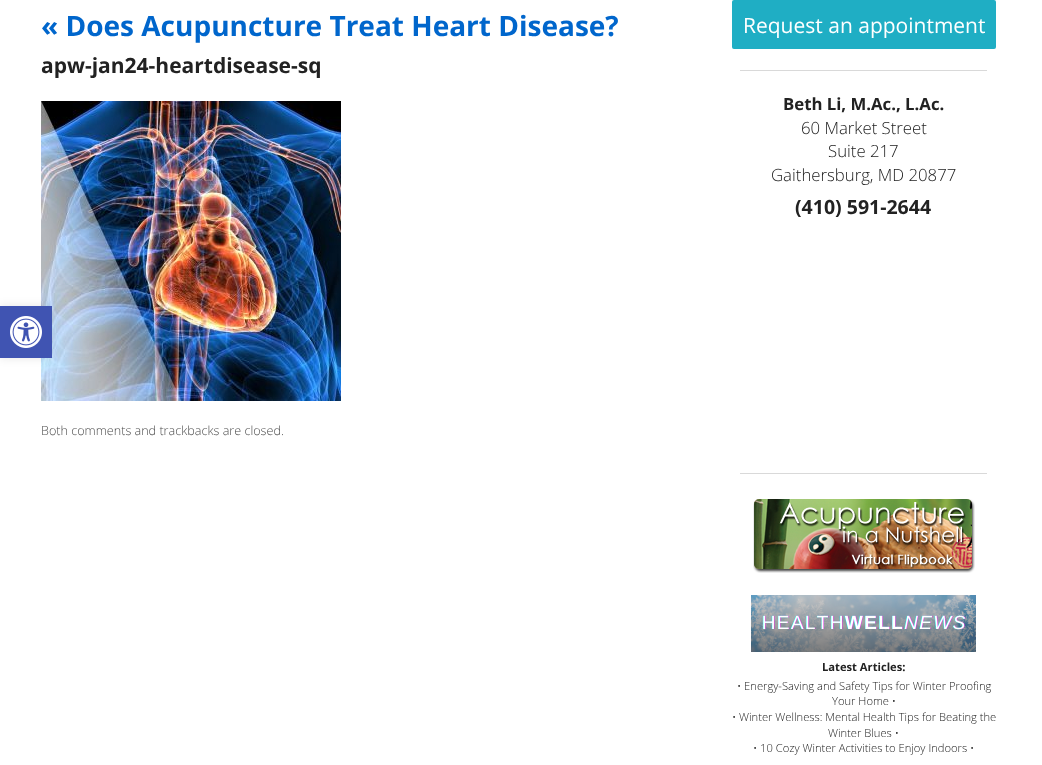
(async () => {
    const canvas = document.querySelector("canvas");
    canvas.width = 1042;
    canvas.height = 765;
    const context = canvas.getContext("2d");
    context.miterLimit = 4;
    context.fontKerning = "normal";
    function write(s, x, y, font, color) {
        context.font = font;
        context.fillStyle = color;
        context.fillText(s, x, y);
    }
    function block(x, y, w, h, color) {
        context.fillStyle = color;
        context.fillRect(x, y, w, h);
    }
    function card(x, y, w, h, r, color) {
        context.fillStyle = color;
        context.beginPath();
        context.roundRect(x, y, w, h, r);
        context.fill();
    }
    async function photo(src, x, y, w, h) {
        const img = new Image();
        img.src = src;
        await img.decode();
        context.drawImage(img, x, y, w, h);
    }

    block(0, 0, 1042, 765, "rgb(255, 255, 255)");
    await photo("media/2.png", 41, 101, 300, 300);
    context.fillStyle = "rgba(0, 0, 0, 0.1)";
    context.filter = "blur(5px)";
    context.beginPath();
    context.rect(0, 306, 52, 52);
    context.fill();
    context.filter = "none";
    block(0, 306, 52, 52, "rgb(64, 84, 178)");
    await photo("media/1.png", 10, 316, 32, 32);
    write("« Does Acupuncture Treat Heart Disease?", 41, 36, "bold 28px Open Sans", "rgb(0, 102, 204)");
    write("apw-jan24-heartdisease-sq", 41, 73, "bold 21px Open Sans", "rgb(34, 34, 34)");
    write("Both comments and trackbacks are closed.", 41, 435, "300 12.6px Open Sans", "rgb(78, 78, 78)");
    card(732, 0, 264, 49, 2, "rgb(31, 174, 196)");
    write("Request an appointment", 743, 33, "21px Open Sans", "rgb(255, 255, 255)");
    block(740, 70, 247, 1, "rgb(217, 217, 217)");
    write("Beth Li, M.Ac., L.Ac.", 783, 110, "bold 16.75px Open Sans", "rgb(34, 34, 34)");
    write("60 Market Street", 801, 134, "300 16.75px Open Sans", "rgb(34, 34, 34)");
    write("Suite 217", 828, 157, "300 16.75px Open Sans", "rgb(34, 34, 34)");
    write("Gaithersburg, MD 20877", 771, 181, "300 16.75px Open Sans", "rgb(34, 34, 34)");
    write("(410) 591-2644", 795, 214, "bold 19.5px Open Sans", "rgb(34, 34, 34)");
    block(740, 473, 247, 1, "rgb(217, 217, 217)");
    await photo("media/3.png", 753, 499, 222, 74);
    await photo("media/4.png", 751, 595, 225, 57);
    write("Latest Articles:", 822, 671, "bold 11.2px Open Sans", "rgb(34, 34, 34)");
    write("• Energy-Saving and Safety Tips for Winter Proofing", 737, 690, "300 11.2px Open Sans", "rgb(34, 34, 34)");
    write("Your Home •", 832, 705, "300 11.2px Open Sans", "rgb(34, 34, 34)");
    write("• Winter Wellness: Mental Health Tips for Beating the", 732, 721, "300 11.2px Open Sans", "rgb(34, 34, 34)");
    write("Winter Blues •", 828, 737, "300 11.2px Open Sans", "rgb(34, 34, 34)");
    write("• 10 Cozy Winter Activities to Enjoy Indoors •", 753, 752, "300 11.2px Open Sans", "rgb(34, 34, 34)");
})();
